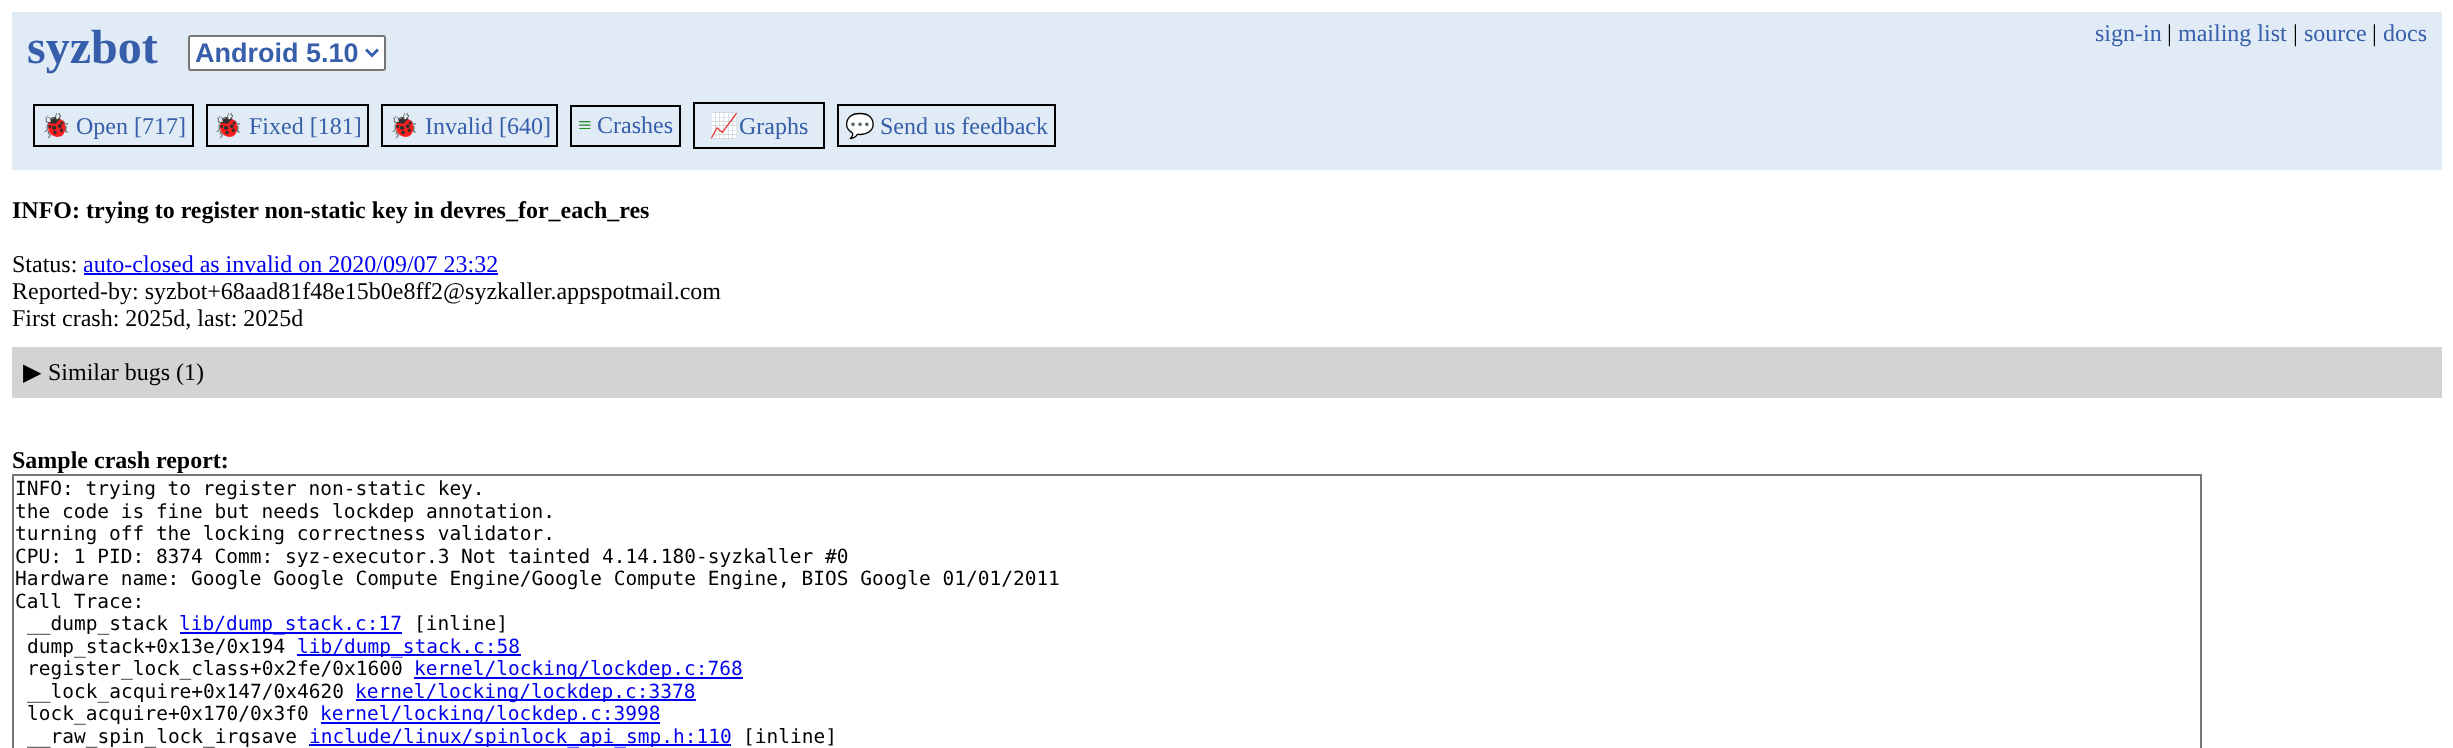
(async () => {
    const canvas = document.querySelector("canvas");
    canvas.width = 2453;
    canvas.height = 748;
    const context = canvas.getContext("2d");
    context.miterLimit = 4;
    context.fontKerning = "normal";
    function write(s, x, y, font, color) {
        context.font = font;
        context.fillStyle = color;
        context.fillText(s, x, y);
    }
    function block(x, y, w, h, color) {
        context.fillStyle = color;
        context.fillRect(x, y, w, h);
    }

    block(0, 0, 2453, 748, "rgb(255, 255, 255)");
    block(12, 12, 2430, 158, "rgb(224, 235, 245)");
    write("syzbot", 27, 63, "bold 48px Liberation Serif", "rgb(55, 94, 171)");
    context.fillStyle = "rgb(255, 255, 255)";
    context.beginPath();
    context.roundRect(189, 36, 196, 34, 2);
    context.fill();
    context.strokeStyle = "rgb(118, 118, 118)";
    context.lineWidth = 2;
    context.stroke();
    context.beginPath();
    context.moveTo(366, 49.5);
    context.lineTo(372, 55.5);
    context.lineTo(378, 49.5);
    context.strokeStyle = "rgb(55, 94, 171)";
    context.lineWidth = 3;
    context.stroke();
    write("Android 5.10", 195, 62, "bold 27px Liberation Sans", "rgb(55, 94, 171)");
    write("sign-in", 2095, 41, "24px Liberation Serif", "rgb(55, 94, 171)");
    write("|", 2167, 41, "24px Liberation Serif", "rgb(0, 0, 0)");
    write("mailing list", 2178, 41, "24px Liberation Serif", "rgb(55, 94, 171)");
    write("|", 2293, 41, "24px Liberation Serif", "rgb(0, 0, 0)");
    write("source", 2304, 41, "24px Liberation Serif", "rgb(55, 94, 171)");
    write("|", 2372, 41, "24px Liberation Serif", "rgb(0, 0, 0)");
    write("docs", 2383, 41, "24px Liberation Serif", "rgb(55, 94, 171)");
    context.strokeStyle = "rgb(0, 0, 0)";
    context.lineWidth = 2;
    context.strokeRect(34, 105, 159, 41);
    write("🐞", 41, 134, "24px Noto Color Emoji", "rgb(255, 20, 147)");
    write("Open [717]", 76, 134, "24px Liberation Serif", "rgb(55, 94, 171)");
    context.strokeRect(207, 105, 161, 41);
    write("🐞", 213, 134, "24px Noto Color Emoji", "rgb(34, 139, 34)");
    write("Fixed [181]", 249, 134, "24px Liberation Serif", "rgb(55, 94, 171)");
    context.strokeRect(382, 105, 175, 41);
    write("🐞", 389, 134, "24px Noto Color Emoji", "rgb(65, 105, 225)");
    write("Invalid [640]", 425, 134, "24px Liberation Serif", "rgb(55, 94, 171)");
    context.strokeRect(571, 106, 109, 40);
    write("≡", 578, 133, "24px Liberation Serif", "rgb(34, 139, 34)");
    write("Crashes", 597, 133, "24px Liberation Serif", "rgb(55, 94, 171)");
    context.strokeRect(694, 103, 130, 45);
    write("📈", 709, 134, "24px Noto Color Emoji", "rgb(255, 140, 0)");
    write("Graphs", 739, 134, "24px Liberation Serif", "rgb(55, 94, 171)");
    context.strokeRect(838, 105, 217, 41);
    write("💬", 845, 134, "24px Noto Color Emoji", "rgb(34, 139, 34)");
    write("Send us feedback", 880, 134, "24px Liberation Serif", "rgb(55, 94, 171)");
    write("INFO: trying to register non-static key in devres_for_each_res", 12, 218, "bold 24px Liberation Serif", "rgb(0, 0, 0)");
    write("Status:", 12, 272, "24px Liberation Serif", "rgb(0, 0, 0)");
    write("auto-closed as invalid on 2020/09/07 23:32", 83, 272, "24px Liberation Serif", "rgb(0, 0, 238)");
    block(84, 273, 414, 2, "rgb(0, 0, 238)");
    write("Reported-by: syzbot+68aad81f48e15b0e8ff2@syzkaller.appspotmail.com", 12, 299, "24px Liberation Serif", "rgb(0, 0, 0)");
    write("First crash: 2025d, last: 2025d", 12, 326, "24px Liberation Serif", "rgb(0, 0, 0)");
    context.strokeStyle = "rgb(211, 211, 211)";
    context.strokeRect(13, 348, 2428, 49);
    block(14, 349, 2426, 47, "rgb(211, 211, 211)");
    write("▶", 23, 380, "24px DejaVu Sans", "rgb(0, 0, 0)");
    write("Similar bugs (1)", 48, 380, "24px Liberation Serif", "rgb(0, 0, 0)");
    write("Sample crash report:", 12, 468, "bold 24px Liberation Serif", "rgb(0, 0, 0)");
    context.strokeStyle = "rgb(119, 119, 119)";
    context.strokeRect(13, 475, 2188, 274);
    write("INFO: trying to register non-static key.", 15, 495, "19.5px DejaVu Sans Mono", "rgb(0, 0, 0)");
    write("the code is fine but needs lockdep annotation.", 15, 518, "19.5px DejaVu Sans Mono", "rgb(0, 0, 0)");
    write("turning off the locking correctness validator.", 15, 540, "19.5px DejaVu Sans Mono", "rgb(0, 0, 0)");
    write("CPU: 1 PID: 8374 Comm: syz-executor.3 Not tainted 4.14.180-syzkaller #0", 15, 563, "19.5px DejaVu Sans Mono", "rgb(0, 0, 0)");
    write("Hardware name: Google Google Compute Engine/Google Compute Engine, BIOS Google 01/01/2011", 15, 585, "19.5px DejaVu Sans Mono", "rgb(0, 0, 0)");
    write("Call Trace:", 15, 608, "19.5px DejaVu Sans Mono", "rgb(0, 0, 0)");
    write("__dump_stack", 27, 630, "19.5px DejaVu Sans Mono", "rgb(0, 0, 0)");
    block(180, 632, 222, 2, "rgb(0, 0, 238)");
    write("lib/dump_stack.c:17", 179, 630, "19.5px DejaVu Sans Mono", "rgb(0, 0, 238)");
    write("[inline]", 414, 630, "19.5px DejaVu Sans Mono", "rgb(0, 0, 0)");
    write("dump_stack+0x13e/0x194", 27, 653, "19.5px DejaVu Sans Mono", "rgb(0, 0, 0)");
    block(297, 654, 224, 2, "rgb(0, 0, 238)");
    write("lib/dump_stack.c:58", 297, 653, "19.5px DejaVu Sans Mono", "rgb(0, 0, 238)");
    write("register_lock_class+0x2fe/0x1600", 27, 675, "19.5px DejaVu Sans Mono", "rgb(0, 0, 0)");
    block(414, 677, 329, 2, "rgb(0, 0, 238)");
    write("kernel/locking/lockdep.c:768", 414, 675, "19.5px DejaVu Sans Mono", "rgb(0, 0, 238)");
    write("__lock_acquire+0x147/0x4620", 27, 698, "19.5px DejaVu Sans Mono", "rgb(0, 0, 0)");
    block(356, 699, 340, 2, "rgb(0, 0, 238)");
    write("kernel/locking/lockdep.c:3378", 355, 698, "19.5px DejaVu Sans Mono", "rgb(0, 0, 238)");
    write("lock_acquire+0x170/0x3f0", 27, 720, "19.5px DejaVu Sans Mono", "rgb(0, 0, 0)");
    block(321, 722, 339, 2, "rgb(0, 0, 238)");
    write("kernel/locking/lockdep.c:3998", 320, 720, "19.5px DejaVu Sans Mono", "rgb(0, 0, 238)");
    write("__raw_spin_lock_irqsave", 27, 743, "19.5px DejaVu Sans Mono", "rgb(0, 0, 0)");
    block(309, 744, 422, 2, "rgb(0, 0, 238)");
    write("include/linux/spinlock_api_smp.h:110", 309, 743, "19.5px DejaVu Sans Mono", "rgb(0, 0, 238)");
    write("[inline]", 743, 743, "19.5px DejaVu Sans Mono", "rgb(0, 0, 0)");
})();
